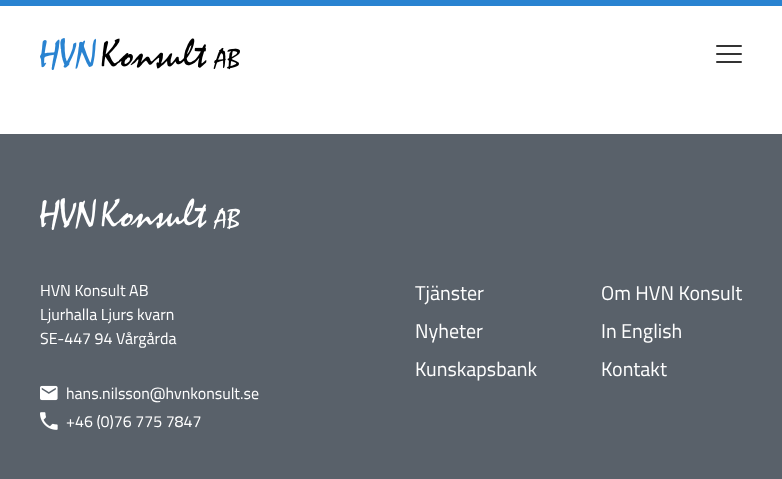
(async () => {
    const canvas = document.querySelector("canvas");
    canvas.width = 782;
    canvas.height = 479;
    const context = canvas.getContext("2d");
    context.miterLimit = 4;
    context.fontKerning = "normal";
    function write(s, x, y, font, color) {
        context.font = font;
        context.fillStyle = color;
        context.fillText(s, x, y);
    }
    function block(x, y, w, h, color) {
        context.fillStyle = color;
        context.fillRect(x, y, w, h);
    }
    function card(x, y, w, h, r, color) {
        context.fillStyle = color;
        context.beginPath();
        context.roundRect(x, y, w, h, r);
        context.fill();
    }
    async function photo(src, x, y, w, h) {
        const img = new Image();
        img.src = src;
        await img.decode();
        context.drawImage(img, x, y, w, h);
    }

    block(0, 0, 782, 479, "rgb(255, 255, 255)");
    block(0, 0, 782, 6, "rgb(41, 131, 209)");
    await photo("media/1.png", 40, 38, 200, 32);
    card(716, 45, 26, 2, 1, "rgb(51, 51, 51)");
    card(716, 53, 26, 2, 1, "rgb(51, 51, 51)");
    card(716, 61, 26, 2, 1, "rgb(51, 51, 51)");
    block(0, 134, 782, 345, "rgb(89, 97, 106)");
    await photo("media/2.png", 40, 198, 200, 32);
    write("HVN Konsult AB", 40, 296, "16px Titillium Web", "rgb(255, 255, 255)");
    write("Ljurhalla Ljurs kvarn", 40, 320, "16px Titillium Web", "rgb(255, 255, 255)");
    write("SE-447 94 Vårgårda", 40, 344, "16px Titillium Web", "rgb(255, 255, 255)");
    await photo("media/3.png", 40, 385, 18, 16);
    write("hans.nilsson@hvnkonsult.se", 66, 399, "16px Titillium Web", "rgb(255, 255, 255)");
    await photo("media/4.png", 40, 412, 18, 18);
    write("+46 (0)76 775 7847", 66, 427, "16px Titillium Web", "rgb(255, 255, 255)");
    write("Tjänster", 415, 300, "20px Titillium Web", "rgb(255, 255, 255)");
    write("Om HVN Konsult", 601, 300, "20px Titillium Web", "rgb(255, 255, 255)");
    write("Nyheter", 415, 338, "20px Titillium Web", "rgb(255, 255, 255)");
    write("In English", 601, 338, "20px Titillium Web", "rgb(255, 255, 255)");
    write("Kunskapsbank", 415, 376, "20px Titillium Web", "rgb(255, 255, 255)");
    write("Kontakt", 601, 376, "20px Titillium Web", "rgb(255, 255, 255)");
})();
